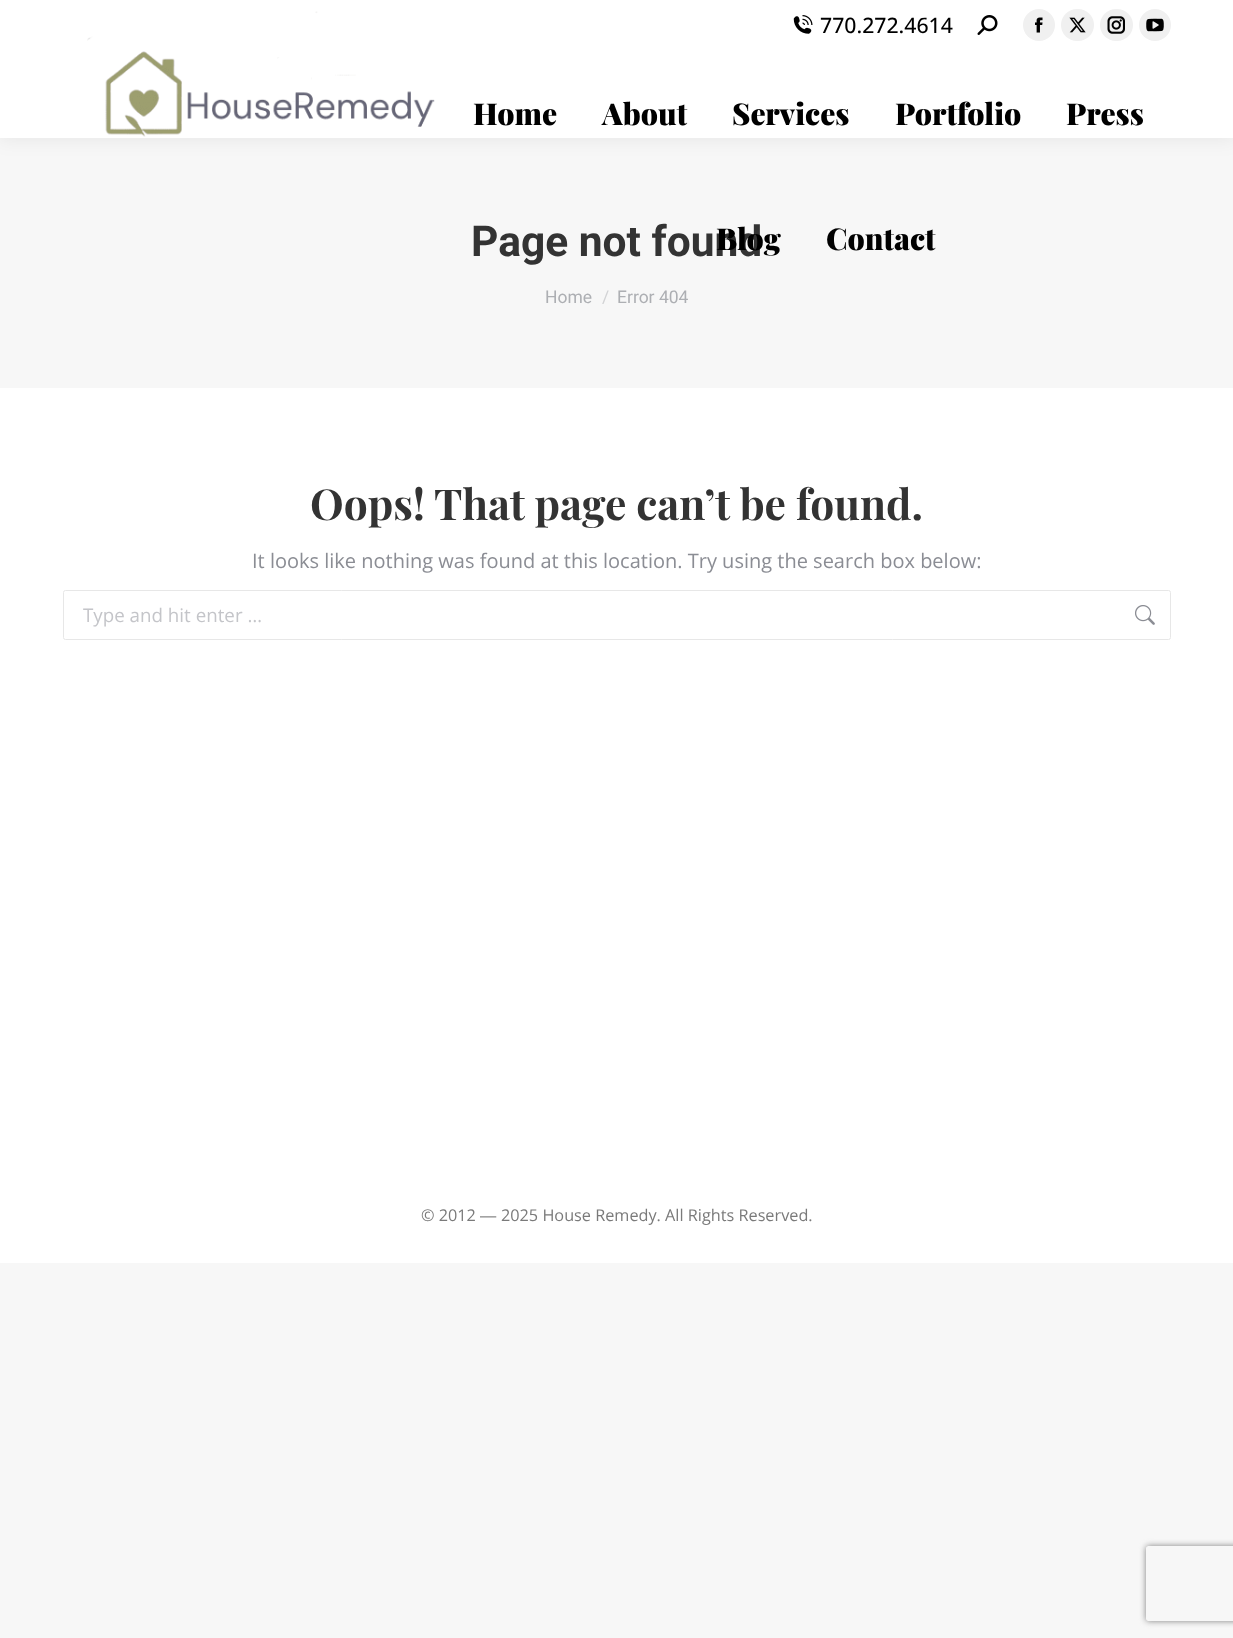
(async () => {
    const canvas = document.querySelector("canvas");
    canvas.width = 1233;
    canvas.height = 1638;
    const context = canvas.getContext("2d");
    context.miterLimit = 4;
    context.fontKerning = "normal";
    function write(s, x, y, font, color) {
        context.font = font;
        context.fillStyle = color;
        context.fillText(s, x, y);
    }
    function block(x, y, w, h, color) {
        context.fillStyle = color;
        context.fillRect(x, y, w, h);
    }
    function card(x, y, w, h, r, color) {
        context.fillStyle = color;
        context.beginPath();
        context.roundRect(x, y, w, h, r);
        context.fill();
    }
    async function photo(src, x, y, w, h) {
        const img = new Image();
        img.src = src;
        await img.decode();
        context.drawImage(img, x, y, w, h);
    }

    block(0, 0, 1233, 1638, "rgb(247, 247, 247)");
    block(0, 388, 1233, 875, "rgb(255, 255, 255)");
    context.fillStyle = "rgba(0, 0, 0, 0.07)";
    context.filter = "blur(9.5px)";
    context.beginPath();
    context.rect(-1, -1, 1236, 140);
    context.fill();
    context.filter = "none";
    block(0, 0, 1233, 138, "rgb(255, 255, 255)");
    await photo("media/1.png", 793, 15, 20, 19);
    write("770.272.4614", 820, 33, "500 21.25px Open Sans", "rgb(0, 0, 0)");
    await photo("media/2.png", 977, 15, 21, 20);
    context.fillStyle = "rgb(240, 240, 240)";
    context.beginPath();
    context.arc(1039, 25, 16, 0, Math.PI * 2);
    context.fill();
    await photo("media/3.png", 1035, 17, 8, 16);
    card(1061, 9, 33, 32, 16, "rgb(240, 240, 240)");
    await photo("media/4.png", 1069, 17, 17, 16);
    card(1100, 9, 33, 32, 16, "rgb(240, 240, 240)");
    await photo("media/5.png", 1107, 16, 18, 18);
    context.beginPath();
    context.arc(1155, 25, 16, 0, Math.PI * 2);
    context.fill();
    await photo("media/6.png", 1146, 18, 18, 14);
    await photo("media/7.png", 87, 11, 348, 126);
    write("Home", 473, 125, "900 30px Playfair Display", "rgb(0, 0, 0)");
    write("About", 602, 125, "900 30px Playfair Display", "rgb(0, 0, 0)");
    write("Services", 732, 125, "900 30px Playfair Display", "rgb(0, 0, 0)");
    write("Portfolio", 895, 125, "900 30px Playfair Display", "rgb(0, 0, 0)");
    write("Press", 1066, 125, "900 30px Playfair Display", "rgb(0, 0, 0)");
    write("Page not found", 471, 256, "bold 42.5px Roboto", "rgb(51, 51, 51)");
    write("Blog", 716, 250, "900 30px Playfair Display", "rgb(0, 0, 0)");
    write("Contact", 826, 250, "900 30px Playfair Display", "rgb(0, 0, 0)");
    write("Home", 545, 303, "17.5px Roboto", "rgb(173, 175, 179)");
    write("/", 602, 303, "17.5px Roboto", "rgb(210, 211, 213)");
    write("Error 404", 617, 303, "17.5px Roboto", "rgb(173, 175, 179)");
    write("Oops! That page can’t be found.", 310, 520, "bold 42.5px Playfair Display", "rgb(51, 51, 51)");
    write("It looks like nothing was found at this location. Try using the search box below:", 252, 568, "20px Open Sans", "rgb(139, 141, 148)");
    context.beginPath();
    context.roundRect(63.5, 590.5, 1107, 49, 2);
    context.strokeStyle = "rgb(231, 231, 231)";
    context.stroke();
    write("Type and hit enter …", 83, 622, "18.75px Open Sans", "rgb(196, 197, 201)");
    await photo("media/8.png", 1135, 605, 20, 20);
    write("© 2012", 421, 1221, "16.25px Open Sans", "rgb(122, 122, 122)");
    write("―", 480, 1221, "16.25px Liberation Sans", "rgb(122, 122, 122)");
    write("2025 House Remedy. All Rights Reserved.", 501, 1221, "16.25px Open Sans", "rgb(122, 122, 122)");
    context.save();
    context.beginPath();
    context.moveTo(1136, 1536);
    context.lineTo(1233, 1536);
    context.lineTo(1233, 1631);
    context.lineTo(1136, 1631);
    context.closePath();
    context.moveTo(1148.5, 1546);
    context.lineTo(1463.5, 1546);
    context.bezierCurveTo(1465, 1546, 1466, 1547, 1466, 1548.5);
    context.lineTo(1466, 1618.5);
    context.bezierCurveTo(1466, 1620, 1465, 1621, 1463.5, 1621);
    context.lineTo(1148.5, 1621);
    context.bezierCurveTo(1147, 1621, 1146, 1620, 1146, 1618.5);
    context.lineTo(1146, 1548.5);
    context.bezierCurveTo(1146, 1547, 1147, 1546, 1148.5, 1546);
    context.closePath();
    context.clip("evenodd");
    context.fillStyle = "rgb(128, 128, 128)";
    context.filter = "blur(3px)";
    context.beginPath();
    context.roundRect(1146, 1546, 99, 75, 2.5);
    context.fill();
    context.filter = "none";
    context.restore();
})();
